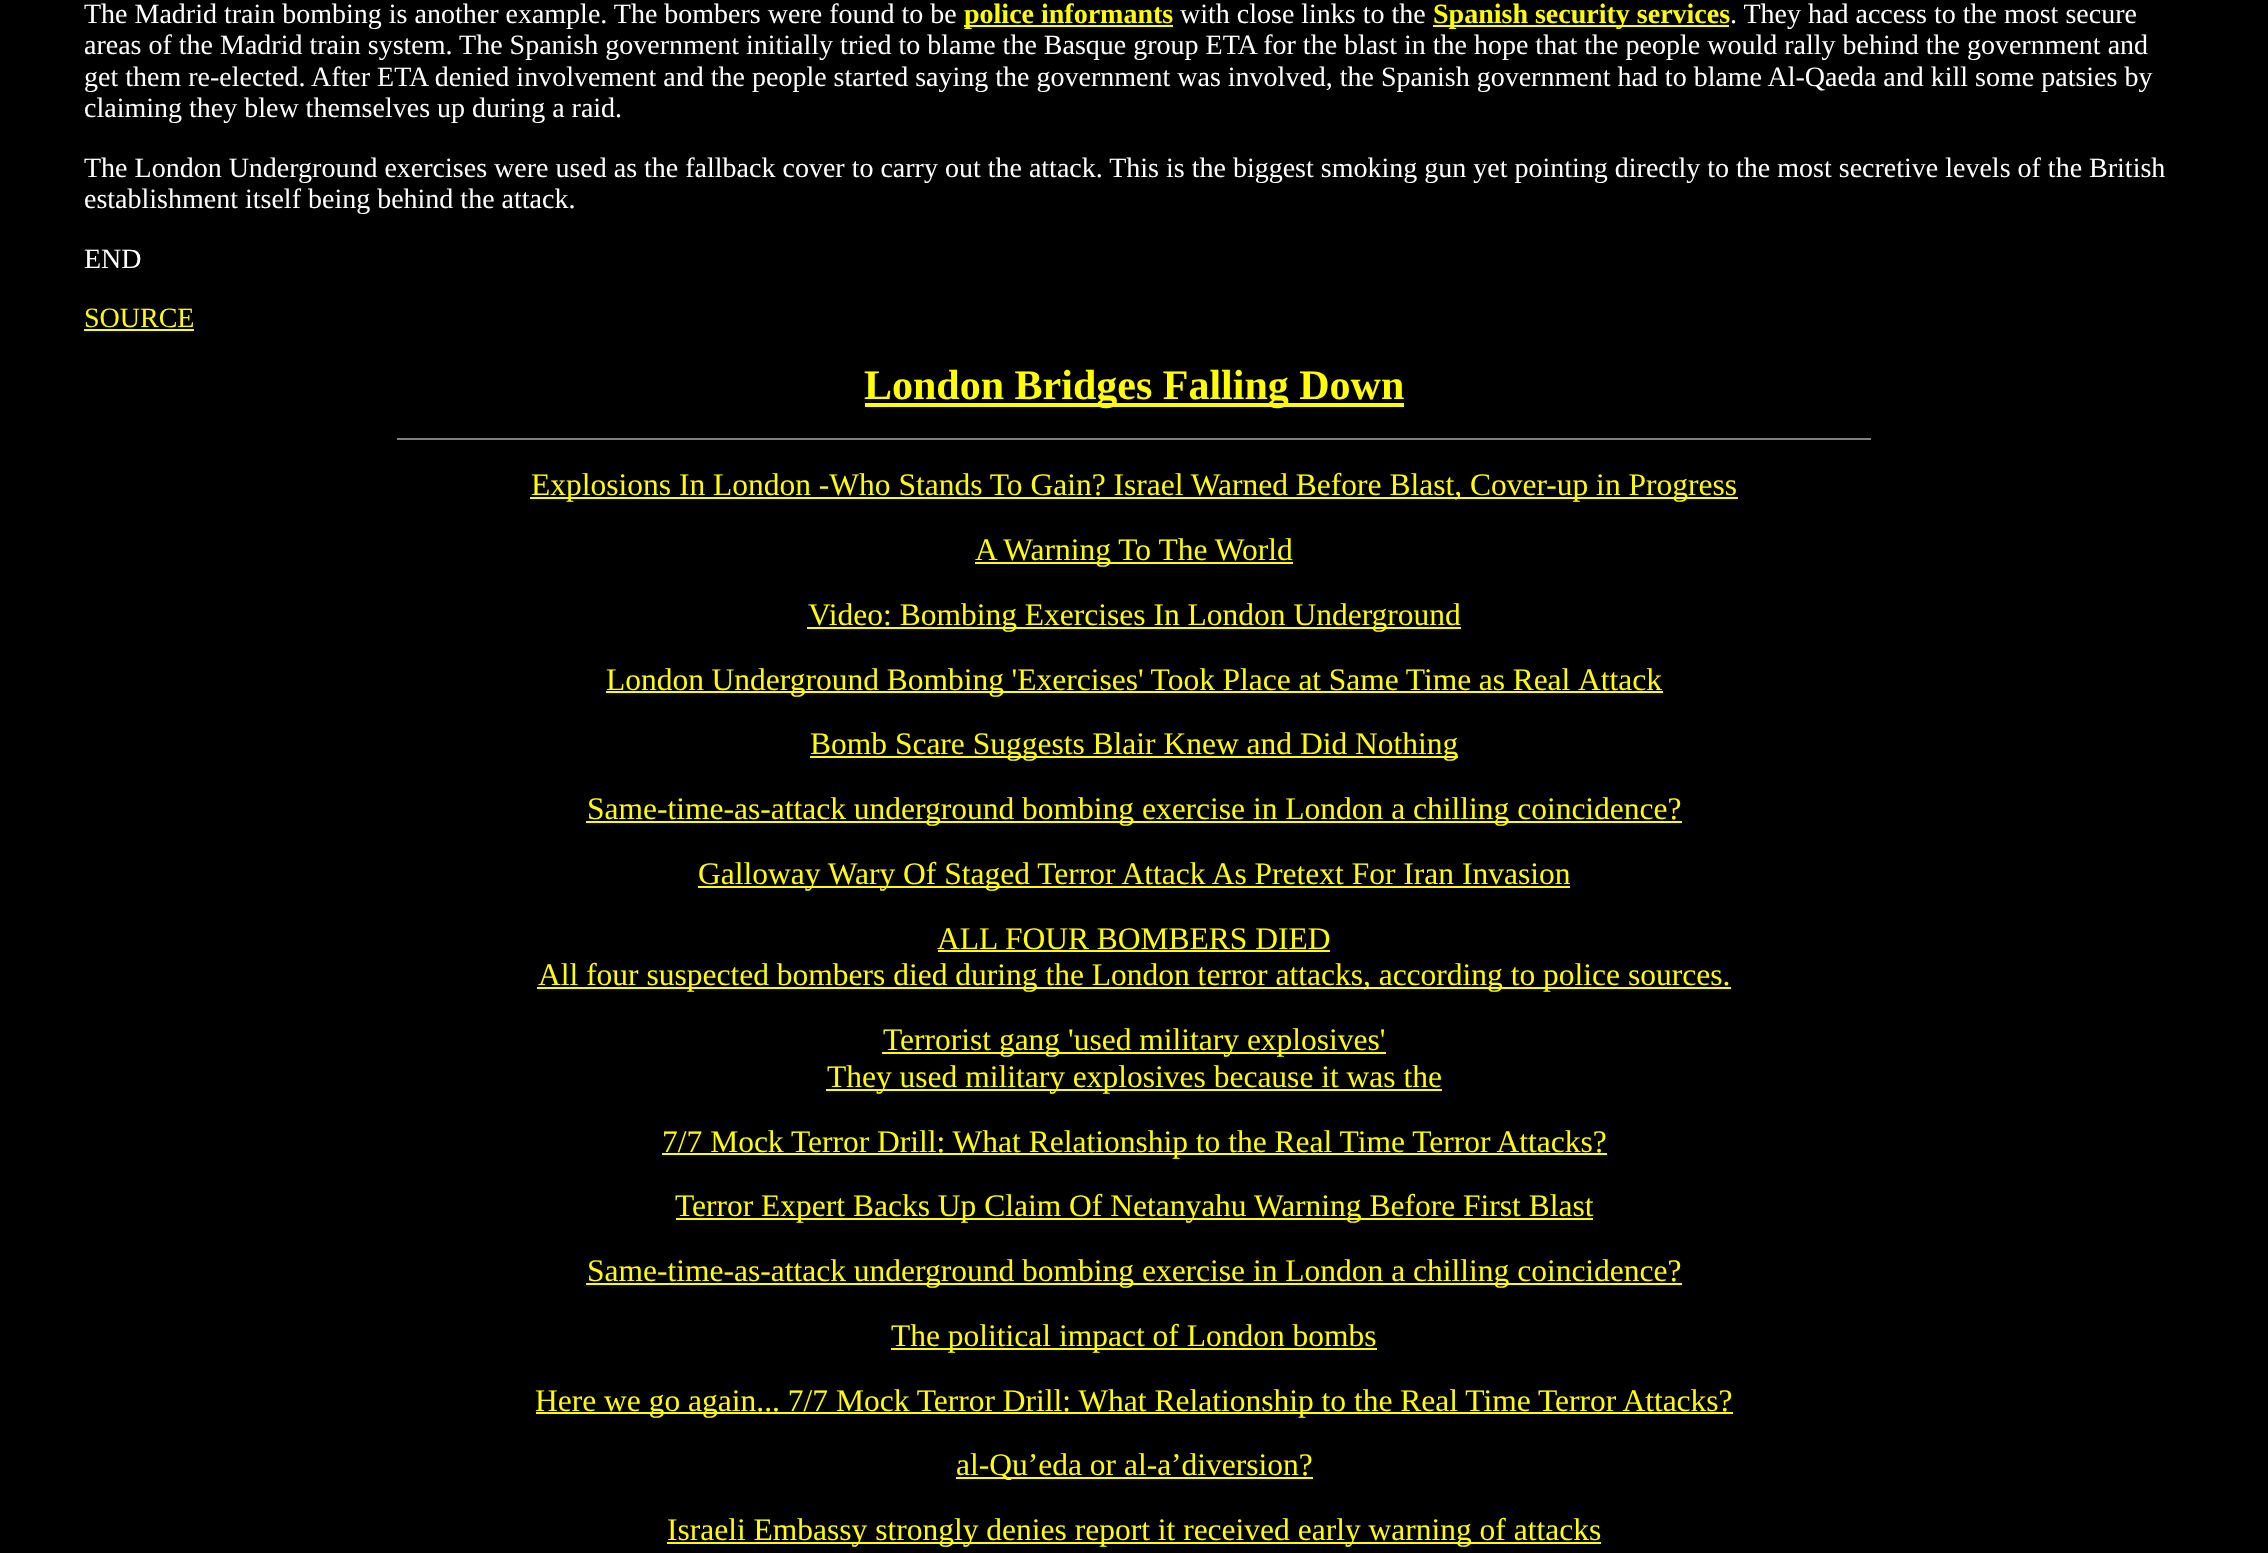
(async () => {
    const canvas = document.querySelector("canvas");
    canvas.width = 2268;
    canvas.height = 1553;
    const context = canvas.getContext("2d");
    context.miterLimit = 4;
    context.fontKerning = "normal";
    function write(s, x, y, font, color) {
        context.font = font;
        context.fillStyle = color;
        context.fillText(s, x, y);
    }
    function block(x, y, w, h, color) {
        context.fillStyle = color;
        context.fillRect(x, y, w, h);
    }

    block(0, 0, 2268, 1553, "rgb(0, 0, 0)");
    write("The Madrid train bombing is another example. The bombers were found to be", 84, 23, "28px Liberation Serif", "rgb(255, 255, 255)");
    block(964, 25, 209, 2, "rgb(255, 255, 0)");
    write("police informants", 964, 23, "bold 28px Liberation Serif", "rgb(255, 255, 0)");
    write("with close links to the", 1180, 23, "28px Liberation Serif", "rgb(255, 255, 255)");
    block(1433, 25, 296, 2, "rgb(255, 255, 0)");
    write("Spanish security services", 1433, 23, "bold 28px Liberation Serif", "rgb(255, 255, 0)");
    write(". They had access to the most secure", 1730, 23, "28px Liberation Serif", "rgb(255, 255, 255)");
    write("areas of the Madrid train system. The Spanish government initially tried to blame the Basque group ETA for the blast in the hope that the people would rally behind the government and", 84, 54, "28px Liberation Serif", "rgb(255, 255, 255)");
    write("get them re-elected. After ETA denied involvement and the people started saying the government was involved, the Spanish government had to blame Al-Qaeda and kill some patsies by", 84, 86, "28px Liberation Serif", "rgb(255, 255, 255)");
    write("claiming they blew themselves up during a raid.", 84, 117, "28px Liberation Serif", "rgb(255, 255, 255)");
    write("The London Underground exercises were used as the fallback cover to carry out the attack. This is the biggest smoking gun yet pointing directly to the most secretive levels of the British", 84, 177, "28px Liberation Serif", "rgb(255, 255, 255)");
    write("establishment itself being behind the attack.", 84, 208, "28px Liberation Serif", "rgb(255, 255, 255)");
    write("END", 84, 268, "28px Liberation Serif", "rgb(255, 255, 255)");
    write("SOURCE", 84, 327, "28px Liberation Serif", "rgb(255, 255, 0)");
    block(84, 329, 110, 2, "rgb(255, 255, 0)");
    block(865, 403, 539, 4, "rgb(255, 255, 0)");
    write("London Bridges Falling Down", 864, 399, "bold 42px Liberation Serif", "rgb(255, 255, 0)");
    block(397, 438, 1474, 2, "rgb(128, 128, 128)");
    block(530, 497, 1208, 2, "rgb(255, 255, 0)");
    write("Explosions In London -Who Stands To Gain? Israel Warned Before Blast, Cover-up in Progress", 531, 495, "31.5px Liberation Serif", "rgb(255, 255, 0)");
    block(975, 562, 318, 2, "rgb(255, 255, 0)");
    write("A Warning To The World", 975, 560, "31.5px Liberation Serif", "rgb(255, 255, 0)");
    block(807, 627, 654, 2, "rgb(255, 255, 0)");
    write("Video: Bombing Exercises In London Underground", 808, 625, "31.5px Liberation Serif", "rgb(255, 255, 0)");
    block(606, 691, 1057, 2, "rgb(255, 255, 0)");
    context.wordSpacing = "-0.25px";
    write("London Underground Bombing 'Exercises' Took Place at Same Time as Real", 606, 690, "31.5px Liberation Serif", "rgb(255, 255, 0)");
    context.wordSpacing = "0px";
    write("Attack", 1578, 690, "31.5px Liberation Serif", "rgb(255, 255, 0)");
    block(810, 756, 648, 2, "rgb(255, 255, 0)");
    write("Bomb Scare Suggests Blair Knew and Did Nothing", 810, 754, "31.5px Liberation Serif", "rgb(255, 255, 0)");
    block(586, 821, 1096, 2, "rgb(255, 255, 0)");
    write("Same-time-as-attack underground bombing exercise in London a chilling coincidence?", 587, 819, "31.5px Liberation Serif", "rgb(255, 255, 0)");
    block(698, 886, 872, 2, "rgb(255, 255, 0)");
    write("Galloway Wary Of Staged Terror Attack As Pretext For Iran Invasion", 698, 884, "31.5px Liberation Serif", "rgb(255, 255, 0)");
    write("ALL FOUR BOMBERS DIED", 937, 949, "31.5px Liberation Serif", "rgb(255, 255, 0)");
    block(938, 950, 392, 2, "rgb(255, 255, 0)");
    block(537, 987, 1194, 2, "rgb(255, 255, 0)");
    write("All four suspected bombers died during the London terror attacks, according to police sources.", 538, 985, "31.5px Liberation Serif", "rgb(255, 255, 0)");
    block(882, 1052, 504, 2, "rgb(255, 255, 0)");
    write("Terrorist gang 'used military explosives'", 883, 1050, "31.5px Liberation Serif", "rgb(255, 255, 0)");
    block(826, 1089, 616, 2, "rgb(255, 255, 0)");
    write("They used military explosives because it was the", 827, 1087, "31.5px Liberation Serif", "rgb(255, 255, 0)");
    block(662, 1153, 945, 2, "rgb(255, 255, 0)");
    write("7/7 Mock Terror Drill: What Relationship to the Real Time Terror Attacks?", 662, 1152, "31.5px Liberation Serif", "rgb(255, 255, 0)");
    block(676, 1218, 917, 2, "rgb(255, 255, 0)");
    write("Terror Expert Backs Up Claim Of Netanyahu Warning Before First Blast", 675, 1216, "31.5px Liberation Serif", "rgb(255, 255, 0)");
    block(586, 1283, 1096, 2, "rgb(255, 255, 0)");
    write("Same-time-as-attack underground bombing exercise in London a chilling coincidence?", 587, 1281, "31.5px Liberation Serif", "rgb(255, 255, 0)");
    block(891, 1348, 486, 2, "rgb(255, 255, 0)");
    write("The political impact of London bombs", 891, 1346, "31.5px Liberation Serif", "rgb(255, 255, 0)");
    block(536, 1412, 1197, 2, "rgb(255, 255, 0)");
    write("Here we go again... 7/7 Mock Terror Drill: What Relationship to the Real Time Terror Attacks?", 535, 1411, "31.5px Liberation Serif", "rgb(255, 255, 0)");
    block(956, 1477, 357, 2, "rgb(255, 255, 0)");
    write("al-Qu’eda or al-a’diversion?", 956, 1475, "31.5px Liberation Serif", "rgb(255, 255, 0)");
    block(667, 1542, 934, 2, "rgb(255, 255, 0)");
    write("Israeli Embassy strongly denies report it received early warning of attacks", 667, 1540, "31.5px Liberation Serif", "rgb(255, 255, 0)");
})();
